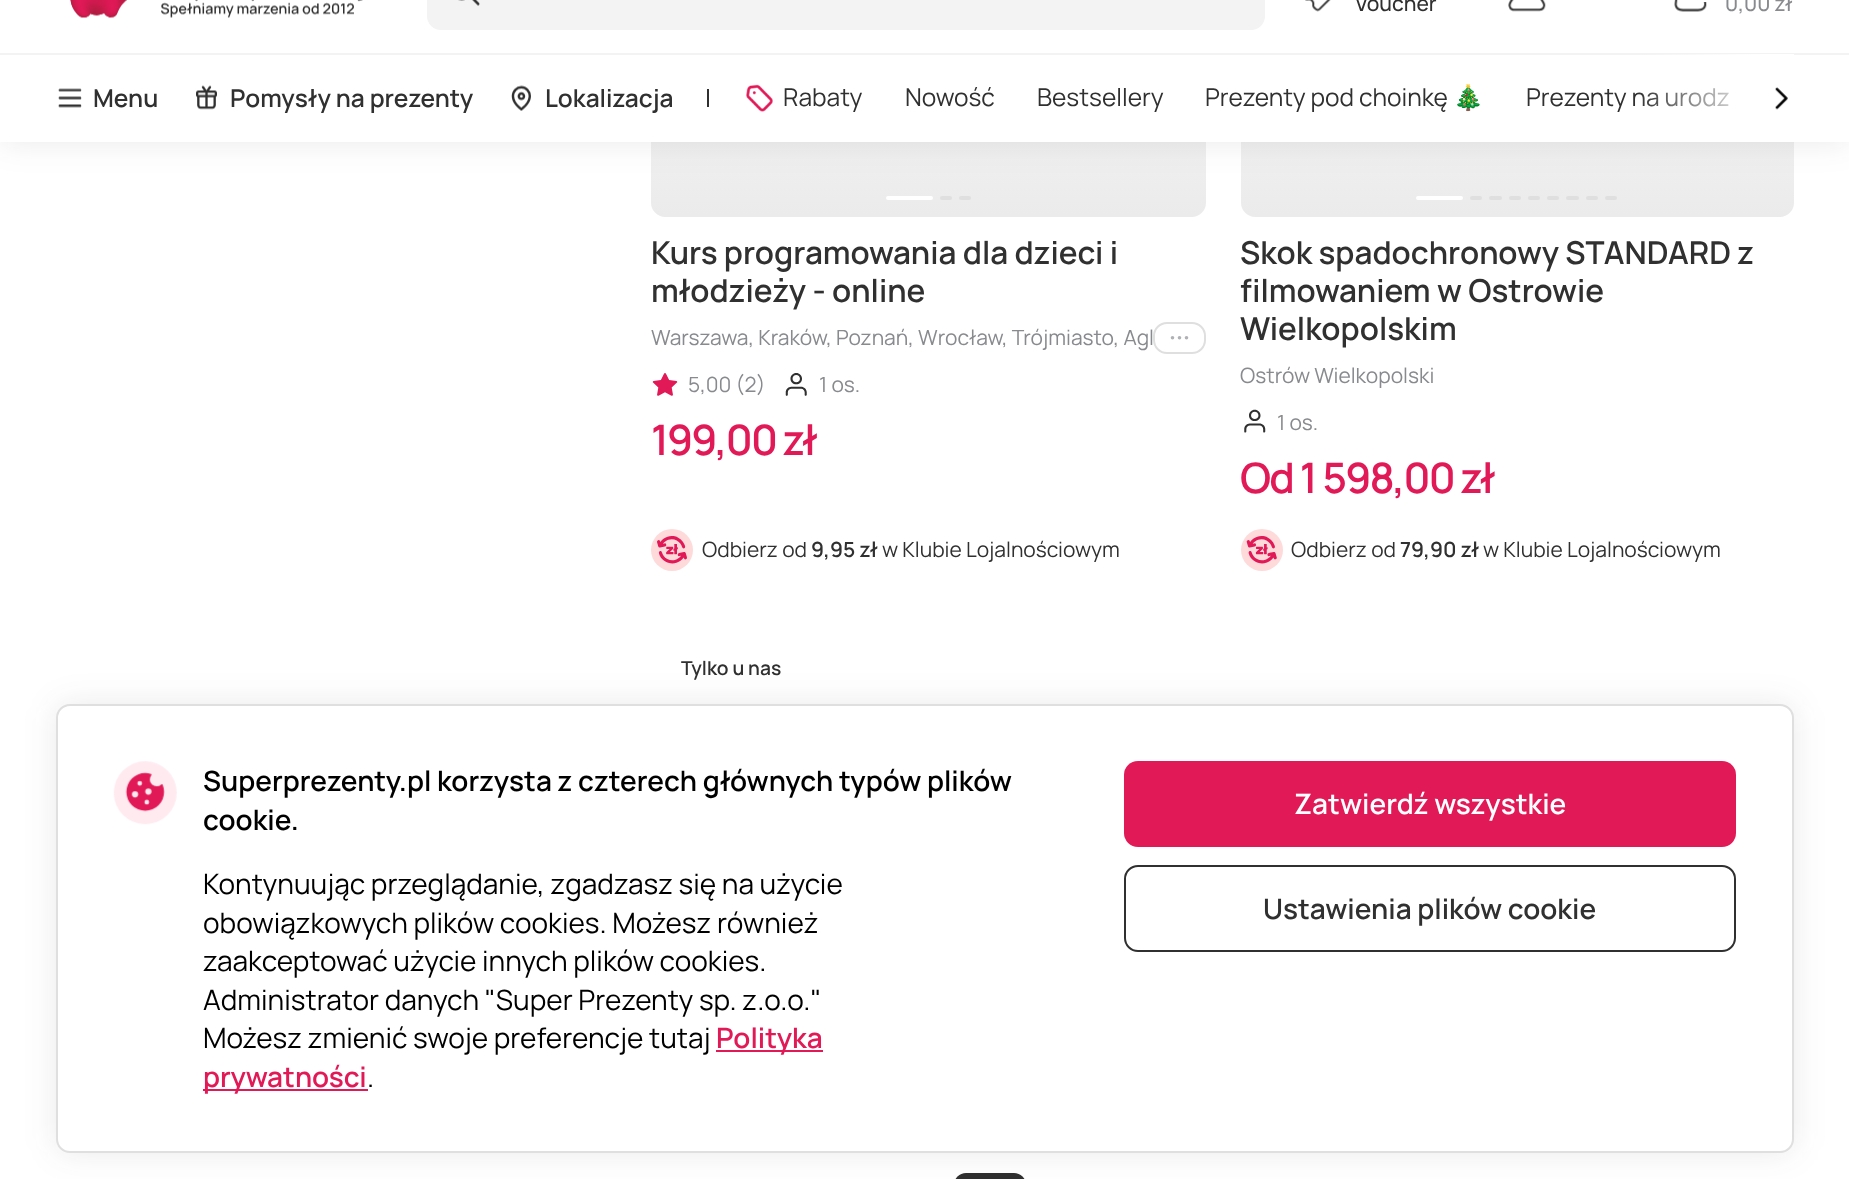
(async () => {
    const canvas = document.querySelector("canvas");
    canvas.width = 1849;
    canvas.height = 1179;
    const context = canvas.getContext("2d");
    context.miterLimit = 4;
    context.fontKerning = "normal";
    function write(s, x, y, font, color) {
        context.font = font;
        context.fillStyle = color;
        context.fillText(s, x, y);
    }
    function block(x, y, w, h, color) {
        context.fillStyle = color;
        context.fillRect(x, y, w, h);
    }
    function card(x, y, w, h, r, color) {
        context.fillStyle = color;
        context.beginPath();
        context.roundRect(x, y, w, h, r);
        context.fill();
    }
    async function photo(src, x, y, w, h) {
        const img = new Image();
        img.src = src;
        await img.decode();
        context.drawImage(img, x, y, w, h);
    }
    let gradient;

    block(0, 0, 1849, 1179, "rgb(255, 255, 255)");
    gradient = context.createLinearGradient(928, -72, 928, 217);
    gradient.addColorStop(0, "rgb(255, 255, 255)");
    gradient.addColorStop(0.99, "rgb(235, 235, 235)");
    context.fillStyle = gradient;
    context.beginPath();
    context.moveTo(651, -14);
    context.lineTo(1206, -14);
    context.lineTo(1206, 203);
    context.bezierCurveTo(1206, 210.5, 1199.5, 217, 1192, 217);
    context.lineTo(665, 217);
    context.bezierCurveTo(657.5, 217, 651, 210.5, 651, 203);
    context.closePath();
    context.fill();
    gradient = context.createLinearGradient(1517, -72, 1517, 217);
    gradient.addColorStop(0, "rgb(255, 255, 255)");
    gradient.addColorStop(0.99, "rgb(235, 235, 235)");
    context.fillStyle = gradient;
    context.beginPath();
    context.moveTo(1241, -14);
    context.lineTo(1794, -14);
    context.lineTo(1794, 203);
    context.bezierCurveTo(1794, 210.5, 1787.5, 217, 1780, 217);
    context.lineTo(1255, 217);
    context.bezierCurveTo(1247.5, 217, 1241, 210.5, 1241, 203);
    context.closePath();
    context.fill();
    context.fillStyle = "rgba(48, 48, 48, 0.1)";
    context.filter = "blur(16px)";
    context.beginPath();
    context.rect(0, -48, 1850, 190);
    context.fill();
    context.filter = "none";
    block(0, 0, 1849, 142, "rgb(255, 255, 255)");
    await photo("media/1.png", 70, 0, 293, 18);
    context.fillStyle = "rgb(243, 243, 243)";
    context.beginPath();
    context.roundRect(428, -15, 836, 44, 13);
    context.fill();
    context.strokeStyle = "rgb(243, 243, 243)";
    context.lineWidth = 2;
    context.stroke();
    await photo("media/2.png", 458, 0, 22, 6);
    await photo("media/3.png", 1305, 0, 26, 12);
    write("Voucher", 1355, 11, "500 21px Manrope", "rgb(48, 48, 48)");
    await photo("media/4.png", 1508, 0, 38, 12);
    await photo("media/5.png", 1674, 0, 33, 12);
    context.beginPath();
    context.roundRect(1690, -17, 29, 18, 14.5);
    context.strokeStyle = "rgb(255, 255, 255)";
    context.stroke();
    write("0,00 zł", 1725, 11, "500 21px Manrope", "rgb(136, 138, 142)");
    block(0, 53, 1849, 2, "rgb(243, 243, 243)");
    await photo("media/6.png", 58, 88, 24, 20);
    write("Menu", 93, 107, "600 24.5px Manrope", "rgb(48, 48, 48)");
    await photo("media/7.png", 196, 85, 21, 25);
    write("Pomysły na prezenty", 230, 107, "600 24.5px Manrope", "rgb(48, 48, 48)");
    await photo("media/8.png", 511, 85, 20, 26);
    write("Lokalizacja", 545, 107, "600 24.5px Manrope", "rgb(48, 48, 48)");
    block(707, 89, 2, 18, "rgb(48, 48, 48)");
    write("Prezenty na urodz", 1526, 106, "24.5px Manrope", "rgb(48, 48, 48)");
    gradient = context.createLinearGradient(1794, 98, 1636, 98);
    gradient.addColorStop(0.2, "rgb(255, 255, 255)");
    gradient.addColorStop(1, "rgba(255, 255, 255, 0)");
    context.fillStyle = gradient;
    context.fillRect(1639, 54, 155, 53);
    await photo("media/9.png", 1775, 87, 13, 23);
    await photo("media/10.png", 746, 84, 27, 28);
    write("Rabaty", 783, 106, "24.5px Manrope", "rgb(48, 48, 48)");
    write("Nowość", 905, 106, "24.5px Manrope", "rgb(48, 48, 48)");
    write("Bestsellery", 1037, 106, "24.5px Manrope", "rgb(48, 48, 48)");
    write("Prezenty pod choinkę", 1205, 106, "24.5px Manrope", "rgb(48, 48, 48)");
    write("🎄", 1453, 106, "24.5px Noto Color Emoji", "rgb(48, 48, 48)");
    card(886, 196, 47, 4, 2, "rgb(255, 255, 255)");
    card(940, 196, 12, 4, 2, "rgb(223, 223, 223)");
    card(959, 196, 12, 4, 2, "rgb(223, 223, 223)");
    write("Kurs programowania dla dzieci i", 651, 264, "600 31.5px Manrope", "rgb(48, 48, 48)");
    write("młodzieży - online", 651, 302, "600 31.5px Manrope", "rgb(48, 48, 48)");
    write("Warszawa, Kraków, Poznań, Wrocław, Trójmiasto, Agl", 651, 345, "21px Manrope", "rgb(136, 138, 142)");
    context.beginPath();
    context.roundRect(1154, 323, 51, 30, 13);
    context.strokeStyle = "rgb(223, 223, 223)";
    context.stroke();
    context.fillStyle = "rgb(175, 177, 181)";
    context.beginPath();
    context.arc(1172.5, 337.8, 1.8, 0, Math.PI * 2);
    context.fill();
    context.beginPath();
    context.arc(1179.5, 337.8, 1.8, 0, Math.PI * 2);
    context.fill();
    context.beginPath();
    context.arc(1186.5, 337.8, 1.8, 0, Math.PI * 2);
    context.fill();
    await photo("media/11.png", 652, 373, 26, 23);
    write("5,00 (2)", 688, 392, "21px Manrope", "rgb(136, 138, 142)");
    await photo("media/12.png", 785, 373, 22, 23);
    write("1 os.", 819, 392, "21px Manrope", "rgb(136, 138, 142)");
    context.letterSpacing = "-1.75px";
    write("199,00 zł", 651, 455, "600 42px Manrope", "rgb(226, 25, 87)");
    context.fillStyle = "rgb(254, 218, 218)";
    context.beginPath();
    context.arc(672, 550, 21, 0, Math.PI * 2);
    context.fill();
    await photo("media/13.png", 657, 536, 30, 28);
    context.letterSpacing = "0px";
    write("Odbierz od", 702, 557, "21px Manrope", "rgb(48, 48, 48)");
    write("9,95 zł", 811, 557, "600 21px Manrope", "rgb(48, 48, 48)");
    write("w Klubie Lojalnościowym", 882, 557, "21px Manrope", "rgb(48, 48, 48)");
    card(1416, 196, 47, 4, 2, "rgb(255, 255, 255)");
    card(1470, 196, 12, 4, 2, "rgb(223, 223, 223)");
    card(1489, 196, 13, 4, 2, "rgb(223, 223, 223)");
    card(1509, 196, 12, 4, 2, "rgb(223, 223, 223)");
    card(1528, 196, 12, 4, 2, "rgb(223, 223, 223)");
    card(1547, 196, 12, 4, 2, "rgb(223, 223, 223)");
    card(1566, 196, 13, 4, 2, "rgb(223, 223, 223)");
    card(1586, 196, 12, 4, 2, "rgb(223, 223, 223)");
    card(1605, 196, 12, 4, 2, "rgb(223, 223, 223)");
    write("Skok spadochronowy STANDARD z", 1240, 264, "600 31.5px Manrope", "rgb(48, 48, 48)");
    write("filmowaniem w Ostrowie", 1240, 302, "600 31.5px Manrope", "rgb(48, 48, 48)");
    write("Wielkopolskim", 1240, 340, "600 31.5px Manrope", "rgb(48, 48, 48)");
    write("Ostrów Wielkopolski", 1240, 383, "21px Manrope", "rgb(136, 138, 142)");
    await photo("media/14.png", 1244, 409, 22, 24);
    write("1 os.", 1277, 430, "21px Manrope", "rgb(136, 138, 142)");
    context.letterSpacing = "-1.75px";
    write("Od 1 598,00 zł", 1240, 493, "600 42px Manrope", "rgb(226, 25, 87)");
    context.fillStyle = "rgb(254, 218, 218)";
    context.beginPath();
    context.arc(1262, 550, 21, 0, Math.PI * 2);
    context.fill();
    await photo("media/15.png", 1246, 536, 31, 28);
    context.letterSpacing = "0px";
    write("Odbierz od", 1291, 557, "21px Manrope", "rgb(48, 48, 48)");
    write("79,90 zł", 1400, 557, "600 21px Manrope", "rgb(48, 48, 48)");
    write("w Klubie Lojalnościowym", 1483, 557, "21px Manrope", "rgb(48, 48, 48)");
    write("Tylko u nas", 681, 675, "600 19.25px Manrope", "rgb(48, 48, 48)");
    card(954, 1173, 72, 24, 17.5, "rgb(48, 48, 48)");
    context.fillStyle = "rgba(48, 48, 48, 0.1)";
    context.filter = "blur(16px)";
    context.beginPath();
    context.roundRect(56, 704, 1738, 449, 14);
    context.fill();
    context.filter = "none";
    context.fillStyle = "rgb(255, 255, 255)";
    context.beginPath();
    context.roundRect(57, 705, 1736, 447, 13);
    context.fill();
    context.stroke();
    await photo("media/16.png", 113, 761, 64, 64);
    write("Superprezenty.pl korzysta z czterech głównych typów plików", 203, 791, "600 28px Manrope", "rgb(0, 0, 0)");
    write("cookie.", 203, 830, "600 28px Manrope", "rgb(0, 0, 0)");
    write("Kontynuując przeglądanie, zgadzasz się na użycie", 203, 894, "28px Manrope", "rgb(0, 0, 0)");
    write("obowiązkowych plików cookies. Możesz również", 203, 933, "28px Manrope", "rgb(0, 0, 0)");
    write("zaakceptować użycie innych plików cookies.", 203, 971, "28px Manrope", "rgb(0, 0, 0)");
    write("Administrator danych \"Super Prezenty sp. z.o.o.\"", 203, 1010, "28px Manrope", "rgb(0, 0, 0)");
    write("Możesz zmienić swoje preferencje tutaj", 203, 1048, "28px Manrope", "rgb(0, 0, 0)");
    block(716, 1050, 107, 2, "rgb(226, 25, 87)");
    write("Polityka", 716, 1048, "600 28px Manrope", "rgb(226, 25, 87)");
    block(203, 1089, 165, 2, "rgb(226, 25, 87)");
    write("prywatności", 203, 1087, "600 28px Manrope", "rgb(226, 25, 87)");
    write(".", 367, 1087, "28px Manrope", "rgb(0, 0, 0)");
    card(1124, 761, 612, 86, 14, "rgb(226, 25, 87)");
    write("Zatwierdź wszystkie", 1294, 814, "600 28px Manrope", "rgb(255, 255, 255)");
    context.beginPath();
    context.roundRect(1125, 866, 610, 85, 13);
    context.strokeStyle = "rgb(48, 48, 48)";
    context.stroke();
    write("Ustawienia plików cookie", 1263, 919, "600 28px Manrope", "rgb(48, 48, 48)");
})();
